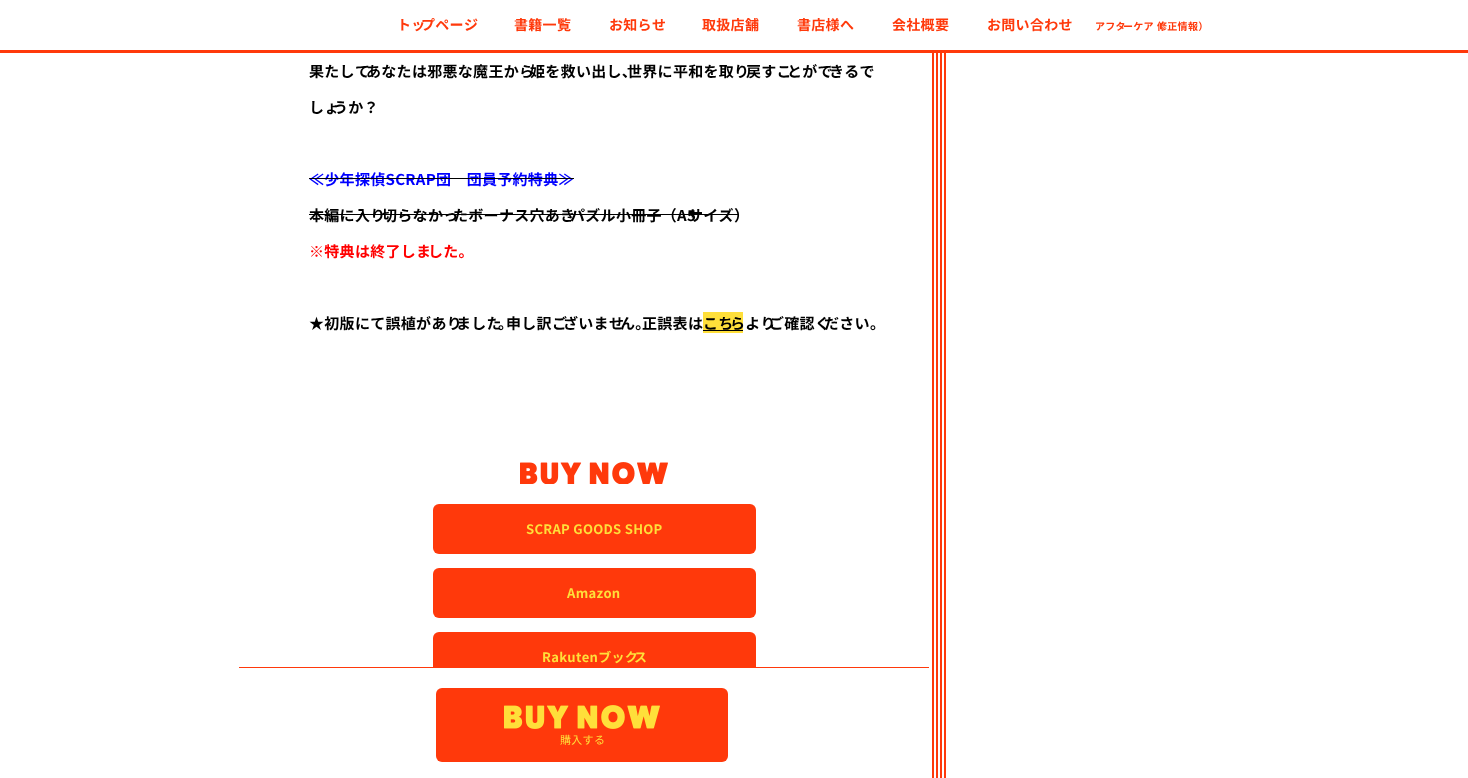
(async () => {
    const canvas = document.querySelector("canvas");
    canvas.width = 1468;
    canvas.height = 778;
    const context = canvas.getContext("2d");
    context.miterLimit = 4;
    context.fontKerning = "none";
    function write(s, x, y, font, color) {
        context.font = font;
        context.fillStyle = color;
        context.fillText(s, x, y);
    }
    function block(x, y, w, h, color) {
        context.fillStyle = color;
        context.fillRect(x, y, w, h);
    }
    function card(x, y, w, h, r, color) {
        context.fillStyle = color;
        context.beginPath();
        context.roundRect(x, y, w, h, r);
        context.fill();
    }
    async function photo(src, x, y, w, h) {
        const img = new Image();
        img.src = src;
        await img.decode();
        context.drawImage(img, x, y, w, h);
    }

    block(0, 0, 1468, 778, "rgb(255, 255, 255)");
    block(0, 50, 1468, 3, "rgb(255, 57, 11)");
    context.letterSpacing = "0.3px";
    write("トッ", 397, 30, "bold 14px Noto Sans JP", "rgb(255, 57, 11)");
    write("プページ", 421, 30, "bold 14px Noto Sans JP", "rgb(255, 57, 11)");
    write("書籍一覧", 514, 30, "bold 14px Noto Sans JP", "rgb(255, 57, 11)");
    write("お知らせ", 609, 30, "bold 14px Noto Sans JP", "rgb(255, 57, 11)");
    write("取扱店舗", 702, 30, "bold 14px Noto Sans JP", "rgb(255, 57, 11)");
    write("書店様へ", 797, 30, "bold 14px Noto Sans JP", "rgb(255, 57, 11)");
    write("会社概要", 892, 30, "bold 14px Noto Sans JP", "rgb(255, 57, 11)");
    write("お問い合わせ", 987, 30, "bold 14px Noto Sans JP", "rgb(255, 57, 11)");
    write("アフタ", 1095, 30, "bold 10px Noto Sans JP", "rgb(255, 57, 11)");
    write("ーケア（", 1123, 30, "bold 10px Noto Sans JP", "rgb(255, 57, 11)");
    write("修正情報）", 1157, 30, "bold 10px Noto Sans JP", "rgb(255, 57, 11)");
    write("果たして", 309, 77, "bold 15px Noto Sans JP", "rgb(0, 0, 0)");
    write("あなたは邪悪な魔王から", 366, 77, "bold 15px Noto Sans JP", "rgb(0, 0, 0)");
    write("姫を救い出し、", 530, 77, "bold 15px Noto Sans JP", "rgb(0, 0, 0)");
    write("世界に平和を取り", 627, 77, "bold 15px Noto Sans JP", "rgb(0, 0, 0)");
    write("戻すこ", 746, 77, "bold 15px Noto Sans JP", "rgb(0, 0, 0)");
    write("とがで", 787, 77, "bold 15px Noto Sans JP", "rgb(0, 0, 0)");
    write("きるで", 829, 77, "bold 15px Noto Sans JP", "rgb(0, 0, 0)");
    write("しょ", 309, 113, "bold 15px Noto Sans JP", "rgb(0, 0, 0)");
    write("うか？", 333, 113, "bold 15px Noto Sans JP", "rgb(0, 0, 0)");
    write("≪少年探偵SCRAP団　団員予約特典≫", 309, 185, "bold 15px Noto Sans JP", "rgb(0, 0, 255)");
    block(309, 178, 265, 1, "rgb(0, 0, 0)");
    write("本編に入り", 309, 221, "bold 15px Noto Sans JP", "rgb(0, 0, 0)");
    write("切らなかっ", 382, 221, "bold 15px Noto Sans JP", "rgb(0, 0, 0)");
    write("たボーナス穴あき", 453, 221, "bold 15px Noto Sans JP", "rgb(0, 0, 0)");
    write("パズル小冊子（A5", 570, 221, "bold 15px Noto Sans JP", "rgb(0, 0, 0)");
    write("サイズ）", 688, 221, "bold 15px Noto Sans JP", "rgb(0, 0, 0)");
    block(309, 214, 430, 1, "rgb(0, 0, 0)");
    write("※特典は終了しま", 309, 257, "bold 15px Noto Sans JP", "rgb(255, 0, 0)");
    write("した。", 428, 257, "bold 15px Noto Sans JP", "rgb(255, 0, 0)");
    write("★初版にて誤植があり", 309, 329, "bold 15px Noto Sans JP", "rgb(0, 0, 0)");
    write("ました", 456, 329, "bold 15px Noto Sans JP", "rgb(0, 0, 0)");
    write("。", 498, 329, "bold 15px Noto Sans JP", "rgb(0, 0, 0)");
    write("申し訳ご", 506, 329, "bold 15px Noto Sans JP", "rgb(0, 0, 0)");
    write("ざいませ", 563, 329, "bold 15px Noto Sans JP", "rgb(0, 0, 0)");
    write("ん。", 620, 329, "bold 15px Noto Sans JP", "rgb(0, 0, 0)");
    write("正誤表は", 642, 329, "bold 15px Noto Sans JP", "rgb(0, 0, 0)");
    block(703, 312, 40, 21, "rgb(255, 223, 58)");
    block(703, 330, 40, 1, "rgb(0, 0, 0)");
    write("こち", 703, 329, "bold 15px Noto Sans JP", "rgb(0, 0, 0)");
    write("らより", 730, 329, "bold 15px Noto Sans JP", "rgb(0, 0, 0)");
    write("ご確認く", 769, 329, "bold 15px Noto Sans JP", "rgb(0, 0, 0)");
    write("ださい。", 824, 329, "bold 15px Noto Sans JP", "rgb(0, 0, 0)");
    await photo("media/1.png", 520, 462, 148, 22);
    card(433, 504, 323, 50, 6, "rgb(255, 57, 11)");
    write("SCRAP GOODS SHOP", 526, 534, "bold 13px Noto Sans JP", "rgb(255, 223, 58)");
    card(433, 568, 323, 50, 6, "rgb(255, 57, 11)");
    write("Amazon", 567, 598, "bold 13px Noto Sans JP", "rgb(255, 223, 58)");
    card(433, 632, 323, 50, 6, "rgb(255, 57, 11)");
    write("Rakutenブック", 542, 662, "bold 13px Noto Sans JP", "rgb(255, 223, 58)");
    write("ス", 634, 662, "bold 13px Noto Sans JP", "rgb(255, 223, 58)");
    block(433, 668, 323, 14, "rgb(255, 255, 255)");
    block(239, 667, 690, 1, "rgb(255, 57, 11)");
    card(436, 688, 292, 74, 6, "rgb(255, 57, 11)");
    await photo("media/2.png", 504, 705, 156, 24);
    write("購入する", 560, 744, "11px Noto Sans JP", "rgb(255, 223, 58)");
    block(936, 53, 2, 725, "rgb(255, 57, 11)");
    block(932, 53, 2, 725, "rgb(255, 57, 11)");
    block(944, 53, 2, 725, "rgb(255, 57, 11)");
    block(940, 53, 2, 725, "rgb(255, 57, 11)");
})();
